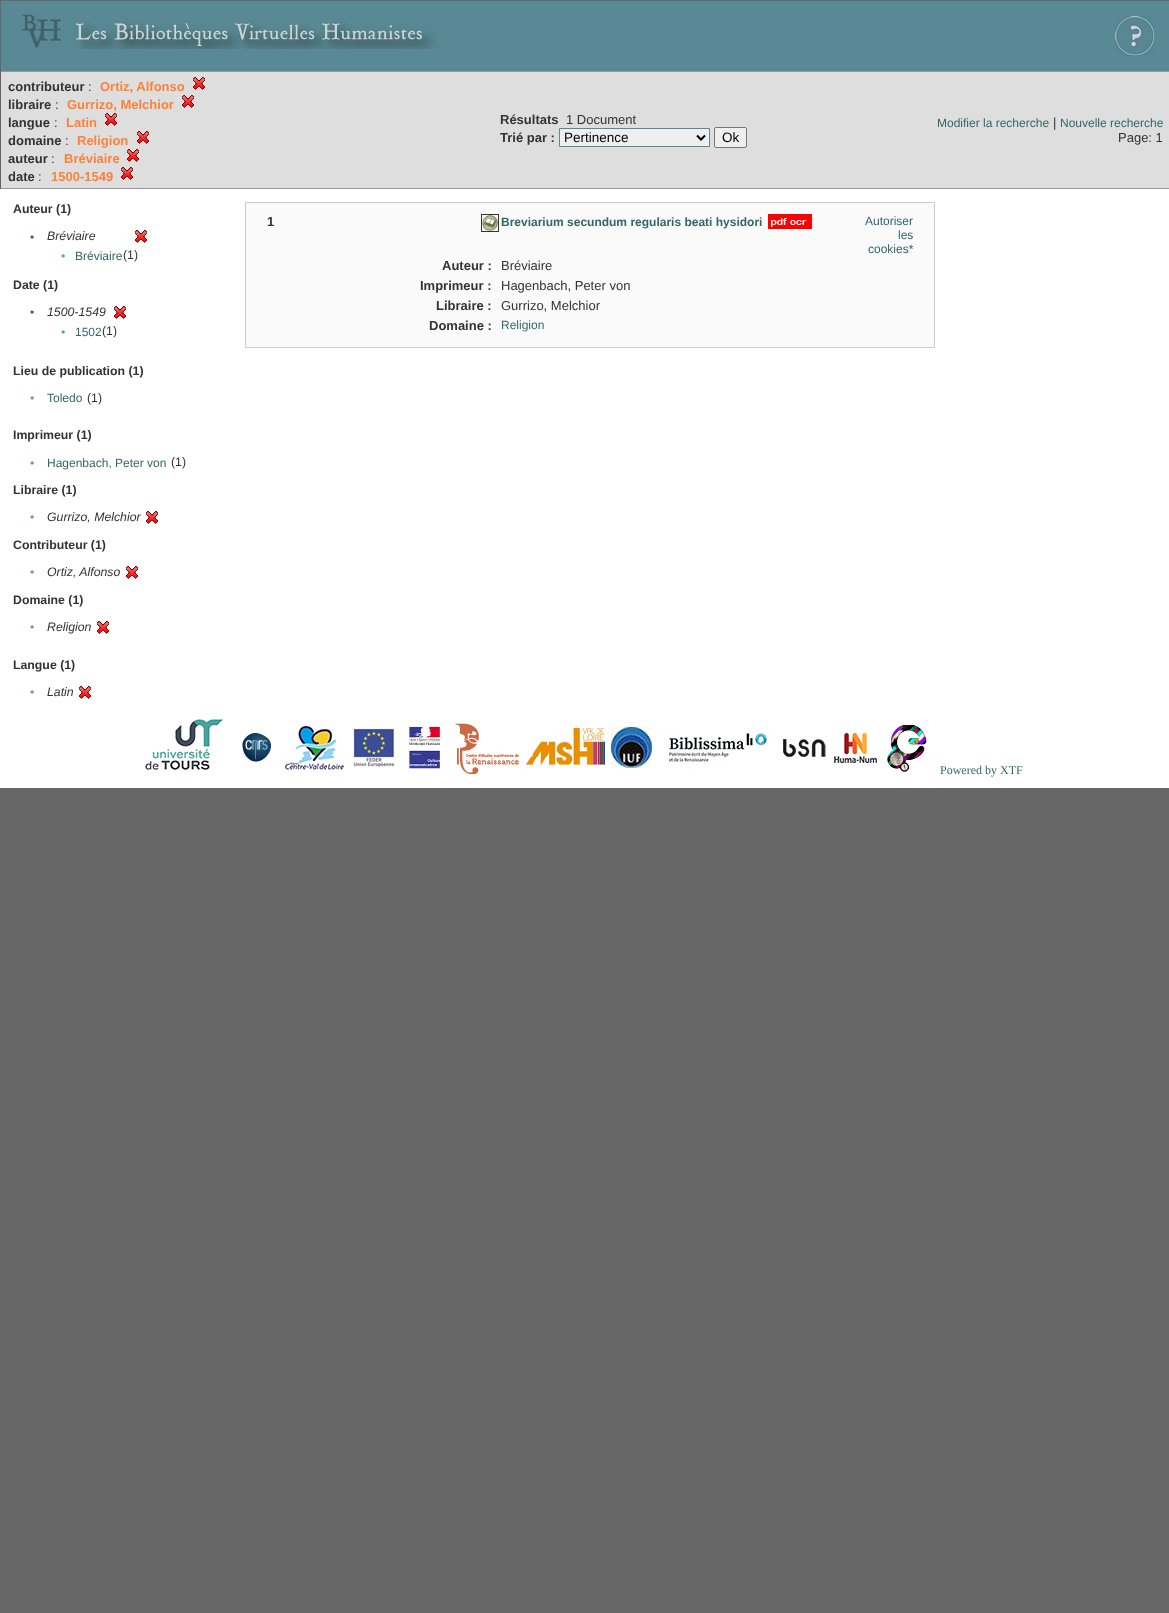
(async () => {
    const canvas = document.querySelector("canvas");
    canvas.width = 1169;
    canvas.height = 1613;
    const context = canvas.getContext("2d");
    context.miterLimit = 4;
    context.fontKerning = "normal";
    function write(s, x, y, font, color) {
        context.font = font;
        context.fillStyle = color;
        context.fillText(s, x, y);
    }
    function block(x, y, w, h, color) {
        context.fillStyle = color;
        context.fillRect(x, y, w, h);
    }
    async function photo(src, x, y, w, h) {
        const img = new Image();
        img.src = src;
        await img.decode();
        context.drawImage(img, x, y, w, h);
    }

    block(0, 0, 1169, 1613, "rgb(102, 102, 102)");
    block(1, 1, 1168, 70, "rgb(89, 137, 149)");
    await photo("media/1.png", 21, 12, 417, 37);
    await photo("media/2.png", 1115, 16, 40, 40);
    block(1, 72, 1168, 116, "rgb(222, 222, 223)");
    block(0, 71, 1169, 1, "rgb(153, 153, 153)");
    block(0, 188, 1169, 1, "rgb(153, 153, 153)");
    block(0, 71, 1, 118, "rgb(102, 102, 102)");
    write("contributeur", 8, 91, "bold 13px Liberation Sans", "rgb(51, 51, 51)");
    write(":", 88, 91, "13px Liberation Sans", "rgb(51, 51, 51)");
    write("Ortiz, Alfonso", 100, 91, "bold 13px Liberation Sans", "rgb(253, 130, 57)");
    await photo("media/3.png", 193, 77, 12, 13);
    write("libraire", 8, 109, "bold 13px Liberation Sans", "rgb(51, 51, 51)");
    write(":", 55, 109, "13px Liberation Sans", "rgb(51, 51, 51)");
    write("Gurrizo, Melchior", 67, 109, "bold 13px Liberation Sans", "rgb(253, 130, 57)");
    await photo("media/3.png", 182, 95, 12, 13);
    write("langue", 8, 127, "bold 13px Liberation Sans", "rgb(51, 51, 51)");
    write(":", 54, 127, "13px Liberation Sans", "rgb(51, 51, 51)");
    write("Latin", 66, 127, "bold 13px Liberation Sans", "rgb(253, 130, 57)");
    await photo("media/3.png", 105, 113, 12, 13);
    write("domaine", 8, 145, "bold 13px Liberation Sans", "rgb(51, 51, 51)");
    write(":", 65, 145, "13px Liberation Sans", "rgb(51, 51, 51)");
    write("Religion", 77, 145, "bold 13px Liberation Sans", "rgb(253, 130, 57)");
    await photo("media/3.png", 137, 131, 12, 13);
    write("auteur", 8, 163, "bold 13px Liberation Sans", "rgb(51, 51, 51)");
    write(":", 51, 163, "13px Liberation Sans", "rgb(51, 51, 51)");
    write("Bréviaire", 64, 163, "bold 13px Liberation Sans", "rgb(253, 130, 57)");
    await photo("media/3.png", 127, 149, 12, 13);
    write("date", 8, 181, "bold 13px Liberation Sans", "rgb(51, 51, 51)");
    write(":", 38, 181, "13px Liberation Sans", "rgb(51, 51, 51)");
    write("1500-1549", 51, 181, "bold 13px Liberation Sans", "rgb(253, 130, 57)");
    await photo("media/3.png", 121, 167, 12, 13);
    write("Résultats", 500, 124, "bold 13px Liberation Sans", "rgb(51, 51, 51)");
    write("1 Document", 566, 124, "13px Liberation Sans", "rgb(51, 51, 51)");
    write("Trié par :", 500, 142, "bold 13px Liberation Sans", "rgb(51, 51, 51)");
    context.fillStyle = "rgb(239, 239, 239)";
    context.beginPath();
    context.rect(559.5, 128.5, 150, 18);
    context.fill();
    context.strokeStyle = "rgb(89, 137, 149)";
    context.stroke();
    context.beginPath();
    context.moveTo(697, 135.5);
    context.lineTo(701, 139.5);
    context.lineTo(705, 135.5);
    context.strokeStyle = "rgb(0, 0, 0)";
    context.lineWidth = 2;
    context.stroke();
    write("Pertinence", 564, 142, "13.5px Liberation Sans", "rgb(0, 0, 0)");
    context.fillStyle = "rgb(239, 239, 239)";
    context.beginPath();
    context.roundRect(714.5, 127.5, 32, 20, 1.5);
    context.fill();
    context.strokeStyle = "rgb(118, 118, 118)";
    context.lineWidth = 1;
    context.stroke();
    write("Ok", 722, 142, "13.5px Liberation Sans", "rgb(0, 0, 0)");
    write("Modifier la recherche", 937, 127, "12px Liberation Sans", "rgb(51, 102, 102)");
    write("|", 1053, 127, "13px Liberation Sans", "rgb(51, 51, 51)");
    write("Nouvelle recherche", 1060, 127, "12px Liberation Sans", "rgb(51, 102, 102)");
    write("Page: 1", 1118, 142, "13px Liberation Sans", "rgb(51, 51, 51)");
    block(0, 189, 1169, 599, "rgb(255, 255, 255)");
    write("Auteur (1)", 13, 213, "bold 12.3px Liberation Sans", "rgb(51, 51, 51)");
    write("•", 30, 241, "12px Liberation Sans", "rgb(51, 102, 102)");
    write("Bréviaire", 47, 240, "italic 12.3px Liberation Sans", "rgb(51, 51, 51)");
    await photo("media/4.png", 135, 230, 12, 13);
    write("•", 61, 260, "12.3px Liberation Sans", "rgb(102, 153, 204)");
    write("Bréviaire", 75, 260, "12px Liberation Sans", "rgb(51, 102, 102)");
    write("(1)", 123, 259, "12.3px Liberation Sans", "rgb(51, 51, 51)");
    write("Date (1)", 13, 289, "bold 12.3px Liberation Sans", "rgb(51, 51, 51)");
    write("•", 30, 316, "12px Liberation Sans", "rgb(51, 102, 102)");
    write("1500-1549", 47, 316, "italic 12.3px Liberation Sans", "rgb(51, 51, 51)");
    await photo("media/4.png", 114, 306, 12, 13);
    write("•", 61, 336, "12.3px Liberation Sans", "rgb(102, 153, 204)");
    write("1502", 75, 336, "12px Liberation Sans", "rgb(51, 102, 102)");
    write("(1)", 102, 335, "12.3px Liberation Sans", "rgb(51, 51, 51)");
    write("Lieu de publication (1)", 13, 375, "bold 12.3px Liberation Sans", "rgb(51, 51, 51)");
    write("•", 30, 402, "12.3px Liberation Sans", "rgb(102, 153, 204)");
    write("Toledo", 47, 402, "12px Liberation Sans", "rgb(51, 102, 102)");
    write("(1)", 87, 402, "12.3px Liberation Sans", "rgb(51, 51, 51)");
    write("Imprimeur (1)", 13, 439, "bold 12.3px Liberation Sans", "rgb(51, 51, 51)");
    write("•", 30, 467, "12.3px Liberation Sans", "rgb(102, 153, 204)");
    write("Hagenbach, Peter von", 47, 467, "12px Liberation Sans", "rgb(51, 102, 102)");
    write("(1)", 171, 466, "12.3px Liberation Sans", "rgb(51, 51, 51)");
    write("Libraire (1)", 13, 494, "bold 12.3px Liberation Sans", "rgb(51, 51, 51)");
    write("•", 30, 521, "12.3px Liberation Sans", "rgb(102, 153, 204)");
    write("Gurrizo, Melchior", 47, 521, "italic 12.3px Liberation Sans", "rgb(51, 51, 51)");
    await photo("media/4.png", 146, 511, 12, 13);
    write("Contributeur (1)", 13, 549, "bold 12.3px Liberation Sans", "rgb(51, 51, 51)");
    write("•", 30, 576, "12.3px Liberation Sans", "rgb(102, 153, 204)");
    write("Ortiz, Alfonso", 47, 576, "italic 12.3px Liberation Sans", "rgb(51, 51, 51)");
    await photo("media/4.png", 126, 566, 12, 13);
    write("Domaine (1)", 13, 604, "bold 12.3px Liberation Sans", "rgb(51, 51, 51)");
    write("•", 30, 631, "12.3px Liberation Sans", "rgb(102, 153, 204)");
    write("Religion", 47, 631, "italic 12.3px Liberation Sans", "rgb(51, 51, 51)");
    await photo("media/4.png", 97, 621, 12, 13);
    write("Langue (1)", 13, 669, "bold 12.3px Liberation Sans", "rgb(51, 51, 51)");
    write("•", 30, 696, "12.3px Liberation Sans", "rgb(102, 153, 204)");
    write("Latin", 47, 696, "italic 12.3px Liberation Sans", "rgb(51, 51, 51)");
    await photo("media/4.png", 79, 686, 12, 13);
    context.fillStyle = "rgb(250, 250, 251)";
    context.beginPath();
    context.rect(245.5, 202.5, 689, 145);
    context.fill();
    context.strokeStyle = "rgb(204, 204, 204)";
    context.stroke();
    write("1", 267, 226, "bold 13px Liberation Sans", "rgb(51, 51, 51)");
    context.strokeStyle = "rgb(51, 51, 51)";
    context.strokeRect(481.5, 214.5, 17, 17);
    await photo("media/5.png", 482, 215, 16, 16);
    write("Breviarium secundum regularis beati hysidori", 501, 226, "bold 12px Liberation Sans", "rgb(51, 102, 102)");
    await photo("media/6.png", 768, 214, 44, 15);
    write("Autoriser", 865, 225, "12px Liberation Sans", "rgb(51, 102, 102)");
    write("les", 898, 239, "12px Liberation Sans", "rgb(51, 102, 102)");
    write("cookies*", 868, 253, "12px Liberation Sans", "rgb(51, 102, 102)");
    write("Auteur :", 442, 270, "bold 13px Liberation Sans", "rgb(51, 51, 51)");
    write("Bréviaire", 501, 270, "13px Liberation Sans", "rgb(51, 51, 51)");
    write("Imprimeur :", 420, 290, "bold 13px Liberation Sans", "rgb(51, 51, 51)");
    write("Hagenbach, Peter von", 501, 290, "13px Liberation Sans", "rgb(51, 51, 51)");
    write("Libraire :", 436, 310, "bold 13px Liberation Sans", "rgb(51, 51, 51)");
    write("Gurrizo, Melchior", 501, 310, "13px Liberation Sans", "rgb(51, 51, 51)");
    write("Domaine :", 429, 330, "bold 13px Liberation Sans", "rgb(51, 51, 51)");
    write("Religion", 501, 329, "12px Liberation Sans", "rgb(51, 102, 102)");
    await photo("media/7.png", 145, 718, 782, 56);
    write("Powered by XTF", 940, 774, "12px Liberation Serif", "rgb(51, 102, 102)");
})();
